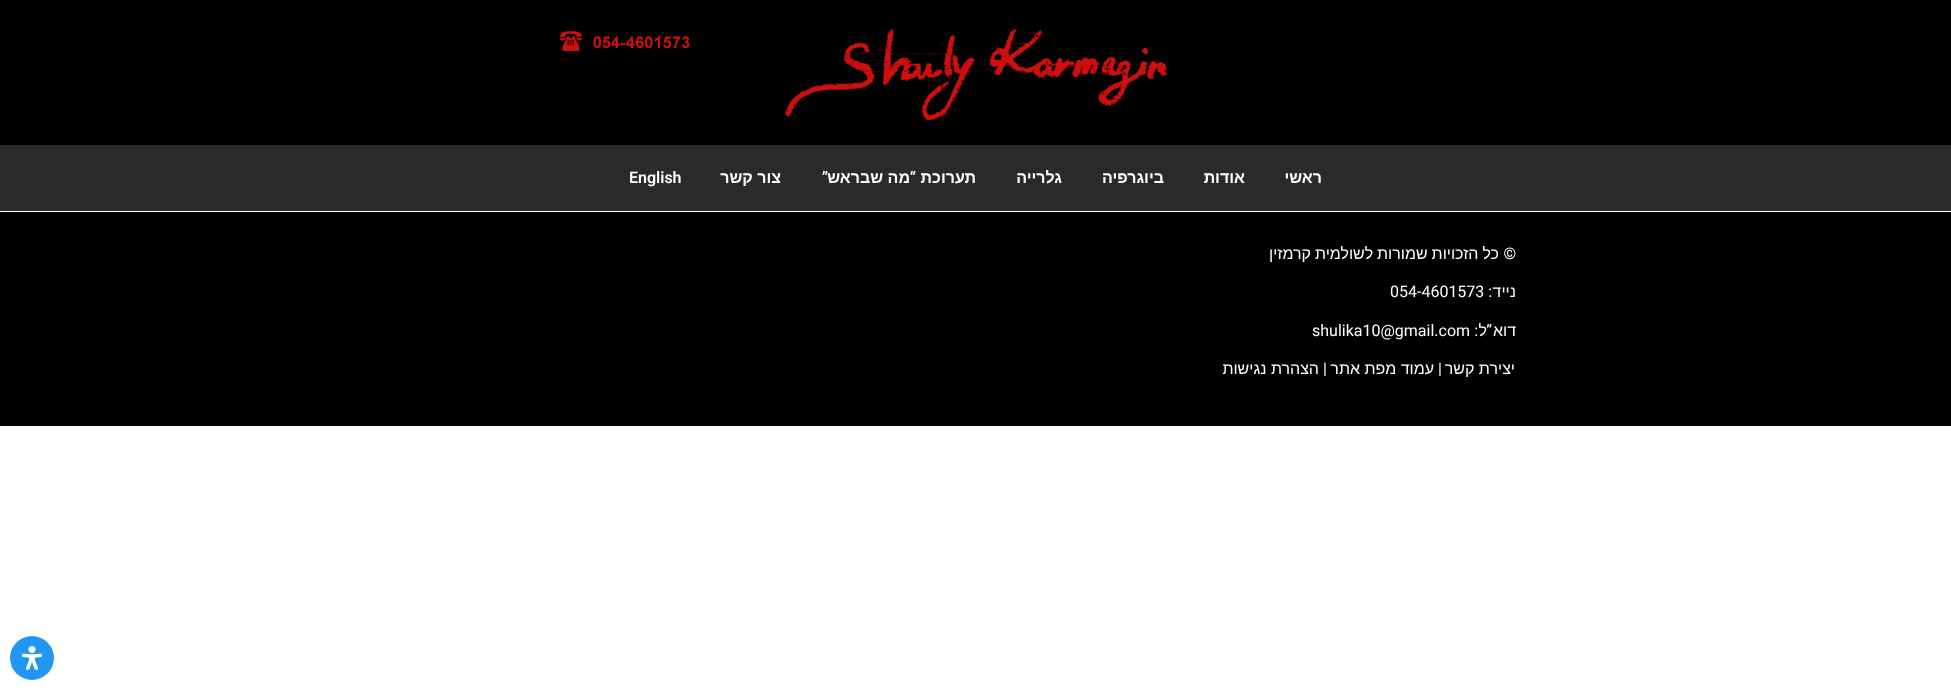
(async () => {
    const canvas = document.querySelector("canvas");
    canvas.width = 1951;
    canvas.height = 690;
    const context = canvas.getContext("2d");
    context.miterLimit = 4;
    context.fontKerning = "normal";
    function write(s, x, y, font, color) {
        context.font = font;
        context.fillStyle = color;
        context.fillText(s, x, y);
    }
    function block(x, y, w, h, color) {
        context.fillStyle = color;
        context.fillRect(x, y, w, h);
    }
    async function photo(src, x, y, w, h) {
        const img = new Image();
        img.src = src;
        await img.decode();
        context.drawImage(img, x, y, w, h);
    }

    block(0, 0, 1951, 690, "rgb(255, 255, 255)");
    block(0, 0, 1951, 145, "rgb(0, 0, 0)");
    await photo("media/1.png", 560, 29, 608, 91);
    block(0, 145, 1951, 66, "rgb(42, 42, 42)");
    context.direction = "rtl";
    write("ראשי", 1322, 183, "bold 16px Liberation Sans", "rgb(255, 255, 255)");
    write("אודות", 1245, 183, "bold 16px Liberation Sans", "rgb(255, 255, 255)");
    write("ביוגרפיה", 1164, 183, "bold 16px Liberation Sans", "rgb(255, 255, 255)");
    write("גלרייה", 1062, 183, "bold 16px Liberation Sans", "rgb(255, 255, 255)");
    write("תערוכת", 976, 183, "bold 16px Liberation Sans", "rgb(255, 255, 255)");
    write("“", 916, 183, "600 16px Roboto", "rgb(255, 255, 255)");
    write("מה שבראש", 910, 183, "bold 16px Liberation Sans", "rgb(255, 255, 255)");
    write("”", 828, 183, "600 16px Roboto", "rgb(255, 255, 255)");
    write("צור קשר", 781, 183, "bold 16px Liberation Sans", "rgb(255, 255, 255)");
    context.direction = "ltr";
    write("English", 629, 183, "600 16px Roboto", "rgb(255, 255, 255)");
    block(0, 212, 1951, 214, "rgb(0, 0, 0)");
    context.direction = "rtl";
    write("©", 1516, 259, "16px Roboto", "rgb(255, 255, 255)");
    context.wordSpacing = "-0.5px";
    write("כל הזכויות שמורות לשולמית קרמזין", 1499, 259, "16px Liberation Sans", "rgb(255, 255, 255)");
    context.wordSpacing = "0px";
    write("נייד", 1516, 297, "16px Liberation Sans", "rgb(255, 255, 255)");
    write(":", 1492, 297, "16px Roboto", "rgb(255, 255, 255)");
    context.direction = "ltr";
    write("054-4601573", 1390, 297, "16px Roboto", "rgb(255, 255, 255)");
    context.direction = "rtl";
    write("דוא", 1516, 336, "16px Liberation Sans", "rgb(255, 255, 255)");
    write("”", 1492, 336, "16px Roboto", "rgb(255, 255, 255)");
    write("ל", 1487, 336, "16px Liberation Sans", "rgb(255, 255, 255)");
    write(":", 1478, 336, "16px Roboto", "rgb(255, 255, 255)");
    context.direction = "ltr";
    write("shulika10@gmail.com", 1312, 336, "16px Roboto", "rgb(255, 255, 255)");
    context.direction = "rtl";
    write("יצירת קשר", 1515, 374, "16px Liberation Sans", "rgb(255, 255, 255)");
    context.direction = "ltr";
    write("|", 1438, 374, "16px Roboto", "rgb(255, 255, 255)");
    context.direction = "rtl";
    write("עמוד מפת אתר", 1434, 374, "16px Liberation Sans", "rgb(255, 255, 255)");
    context.direction = "ltr";
    write("|", 1323, 374, "16px Roboto", "rgb(255, 255, 255)");
    context.direction = "rtl";
    write("הצהרת נגישות", 1319, 374, "16px Liberation Sans", "rgb(255, 255, 255)");
    context.fillStyle = "rgb(33, 150, 243)";
    context.beginPath();
    context.arc(32, 658, 22, 0, Math.PI * 2);
    context.fill();
    await photo("media/2.png", 22, 646, 20, 24);
})();
